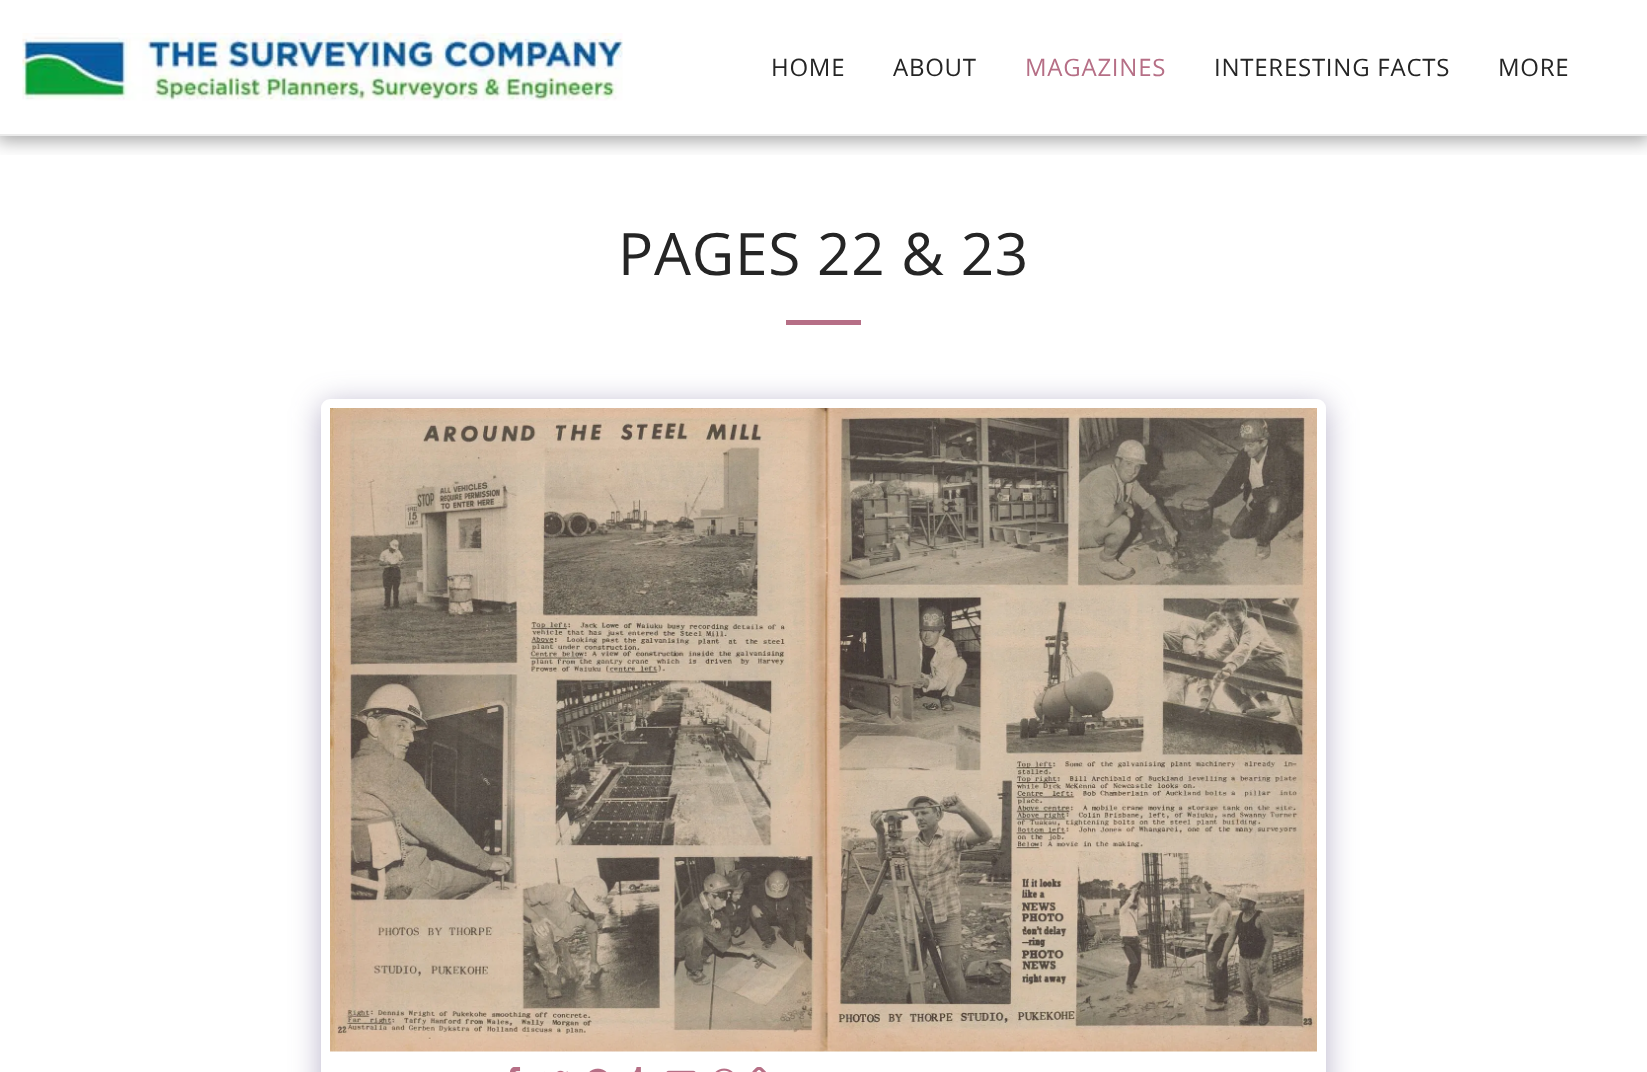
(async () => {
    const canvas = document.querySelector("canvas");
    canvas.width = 1647;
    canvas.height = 1072;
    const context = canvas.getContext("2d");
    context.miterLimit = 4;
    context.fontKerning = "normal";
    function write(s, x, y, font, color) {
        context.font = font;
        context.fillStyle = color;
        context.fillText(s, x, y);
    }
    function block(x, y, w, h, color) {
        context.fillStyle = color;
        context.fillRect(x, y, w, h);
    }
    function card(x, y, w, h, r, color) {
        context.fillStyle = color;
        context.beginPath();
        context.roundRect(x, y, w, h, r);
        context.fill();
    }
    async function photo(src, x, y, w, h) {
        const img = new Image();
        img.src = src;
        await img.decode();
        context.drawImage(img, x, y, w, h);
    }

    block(0, 0, 1647, 1072, "rgb(255, 255, 255)");
    context.save();
    context.beginPath();
    context.rect(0, 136, 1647, 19);
    context.clip();
    context.fillStyle = "rgba(0, 0, 0, 0.35)";
    context.filter = "blur(9px)";
    context.beginPath();
    context.rect(-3, 0, 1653, 141);
    context.fill();
    context.filter = "none";
    context.restore();
    block(0, 134, 1647, 2, "rgb(235, 235, 235)");
    await photo("media/1.png", 22, 33, 601, 68);
    context.letterSpacing = "0.75px";
    write("HOME", 771, 76, "24px Open Sans", "rgb(37, 37, 37)");
    write("ABOUT", 893, 76, "24px Open Sans", "rgb(37, 37, 37)");
    write("MAGAZINES", 1025, 76, "24px Open Sans", "rgb(182, 111, 134)");
    write("INTERESTING FACTS", 1214, 76, "24px Open Sans", "rgb(37, 37, 37)");
    write("MORE", 1498, 76, "24px Open Sans", "rgb(37, 37, 37)");
    write("PAGES 22 & 23", 618, 275, "58.5px Open Sans", "rgb(37, 37, 37)");
    block(786, 320, 75, 5, "rgb(182, 111, 134)");
    context.fillStyle = "rgba(77, 63, 122, 0.4)";
    context.filter = "blur(15px)";
    context.beginPath();
    context.roundRect(321, 404, 1005, 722, 9);
    context.fill();
    context.filter = "none";
    card(321, 399, 1005, 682, 9, "rgb(255, 255, 255)");
    await photo("media/2.png", 330, 408, 987, 644);
    await photo("media/3.png", 510, 1067, 11, 5);
    await photo("media/4.png", 544, 1070, 24, 2);
    await photo("media/5.png", 589, 1068, 18, 4);
    await photo("media/6.png", 634, 1067, 7, 5);
    await photo("media/7.png", 666, 1070, 30, 2);
    await photo("media/8.png", 715, 1068, 18, 4);
    await photo("media/9.png", 752, 1067, 14, 5);
})();
